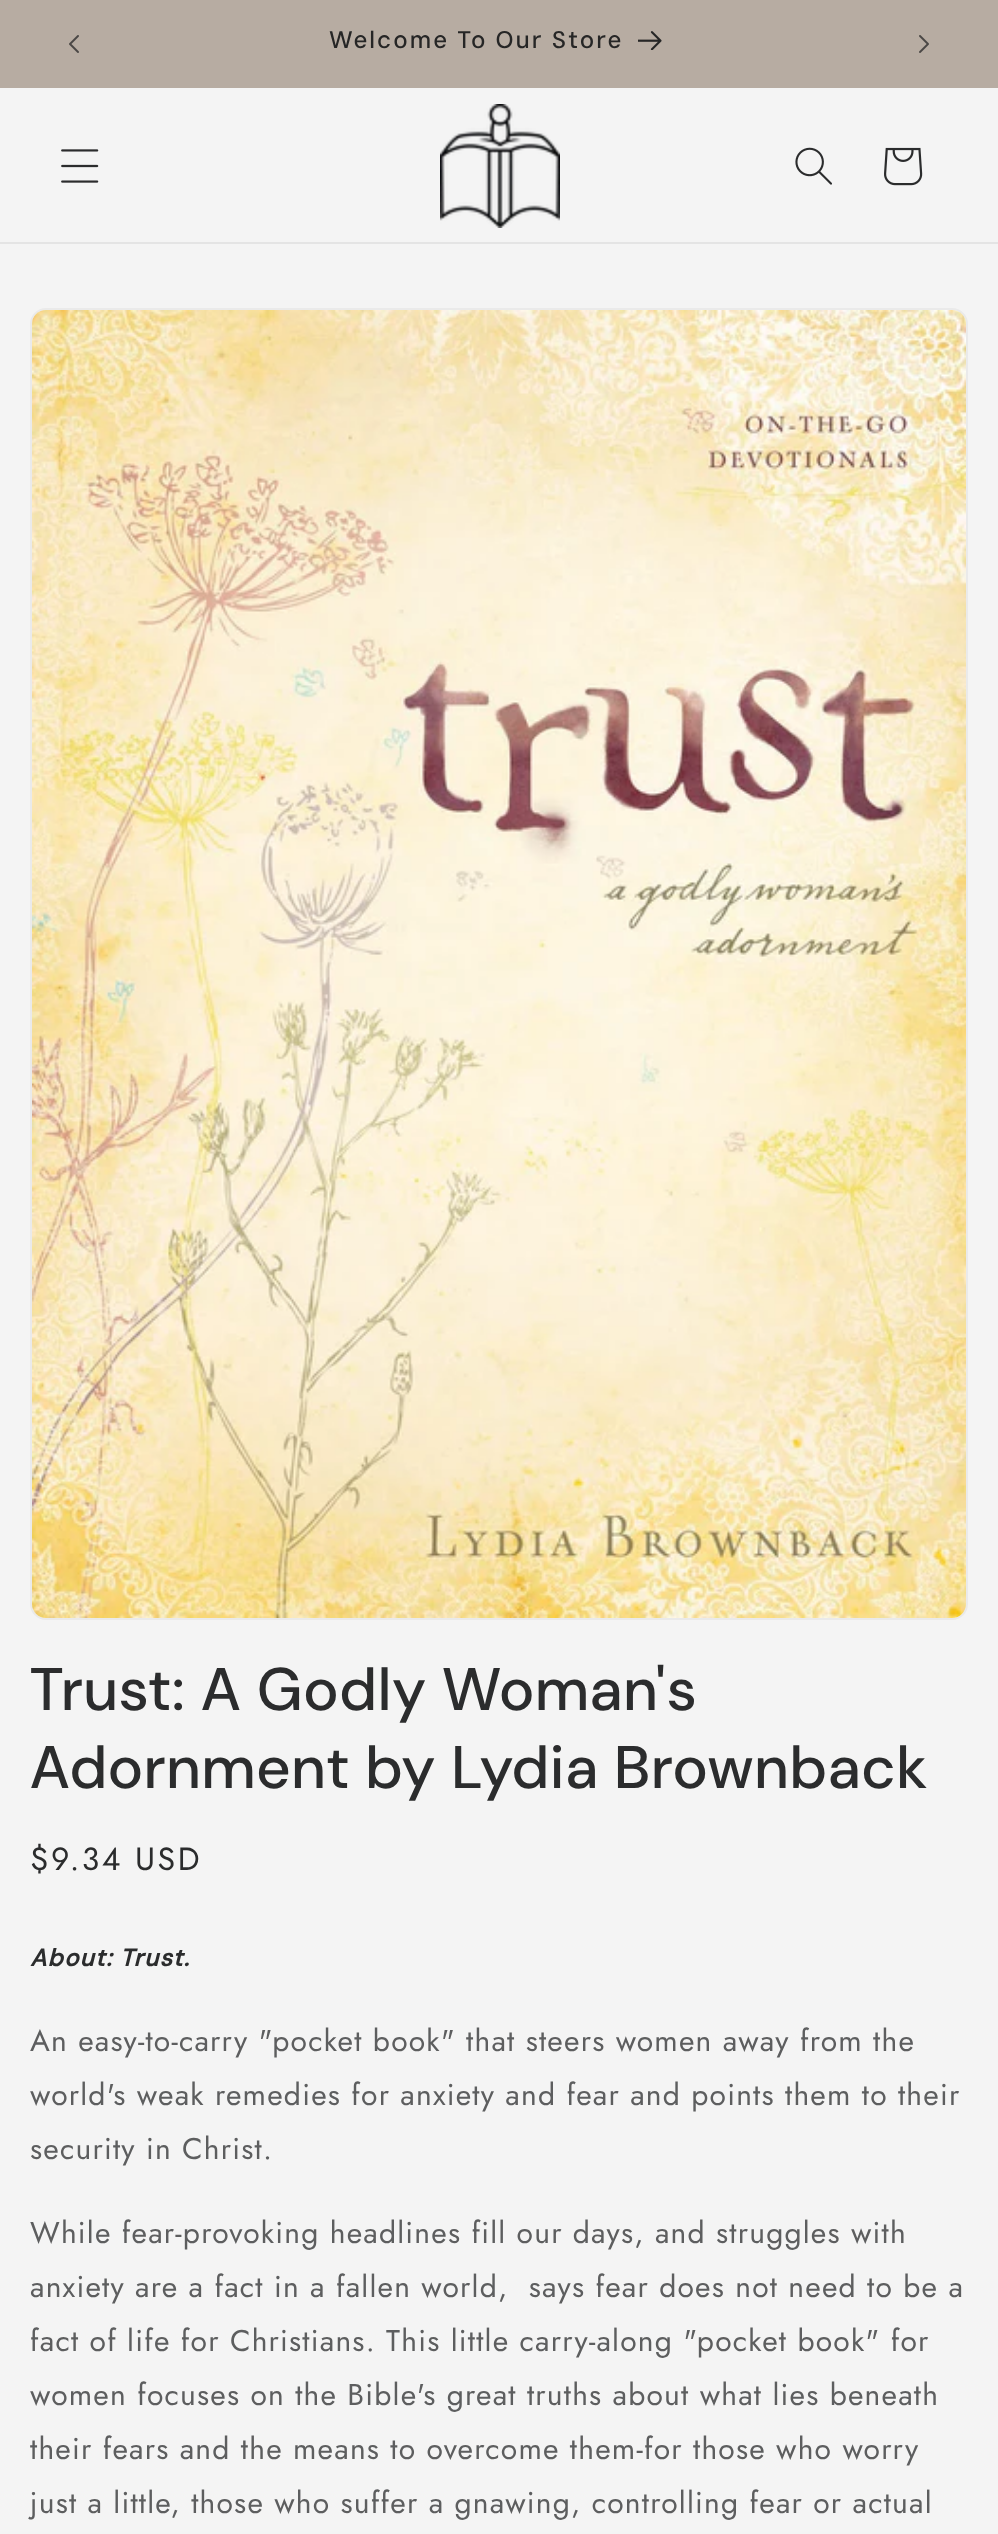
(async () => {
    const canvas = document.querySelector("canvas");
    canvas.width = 998;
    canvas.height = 2534;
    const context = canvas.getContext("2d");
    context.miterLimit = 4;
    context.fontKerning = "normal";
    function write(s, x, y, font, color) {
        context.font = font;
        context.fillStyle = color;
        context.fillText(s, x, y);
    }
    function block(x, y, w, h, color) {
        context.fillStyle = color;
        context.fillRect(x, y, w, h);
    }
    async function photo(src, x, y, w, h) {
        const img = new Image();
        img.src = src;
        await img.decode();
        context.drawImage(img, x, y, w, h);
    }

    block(0, 0, 998, 2534, "rgb(244, 244, 244)");
    block(0, 0, 998, 88, "rgb(183, 172, 162)");
    await photo("media/1.png", 69, 35, 10, 18);
    context.letterSpacing = "2px";
    write("Welcome To Our Store", 329, 48, "500 24px 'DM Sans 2'", "rgb(38, 38, 38)");
    await photo("media/2.png", 638, 31, 24, 19);
    await photo("media/3.png", 919, 35, 10, 18);
    block(0, 242, 998, 2, "rgb(228, 228, 228)");
    await photo("media/4.png", 61, 149, 38, 34);
    await photo("media/5.png", 440, 104, 120, 124);
    await photo("media/6.png", 795, 147, 37, 38);
    await photo("media/7.png", 884, 147, 39, 39);
    context.beginPath();
    context.roundRect(31, 309, 936, 1310, 15);
    context.strokeStyle = "rgb(234, 234, 234)";
    context.lineWidth = 2;
    context.stroke();
    await photo("media/8.png", 32, 310, 934, 1308);
    context.letterSpacing = "1.2px";
    write("Trust: A Godly Woman's", 30, 1710, "500 60px DM Sans", "rgb(43, 44, 45)");
    write("Adornment by Lydia Brownback", 30, 1788, "500 60px DM Sans", "rgb(43, 44, 45)");
    context.letterSpacing = "2.5px";
    write("$9.34 USD", 30, 1870, "32px Jost", "rgb(43, 44, 45)");
    context.letterSpacing = "1.2px";
    write("About: Trust.", 30, 1966, "italic bold 24px DM Sans", "rgb(43, 44, 45)");
    write("An easy-to-carry \"pocket book\" that steers women away from the", 30, 2051, "30px Jost", "rgb(93, 94, 95)");
    write("world's weak remedies for anxiety and fear and points them to their", 30, 2105, "30px Jost", "rgb(93, 94, 95)");
    write("security in Christ.", 30, 2159, "30px Jost", "rgb(93, 94, 95)");
    write("While fear-provoking headlines fill our days, and struggles with", 30, 2243, "30px Jost", "rgb(93, 94, 95)");
    write("anxiety are a fact in a fallen world,  says fear does not need to be a", 30, 2297, "30px Jost", "rgb(93, 94, 95)");
    write("fact of life for Christians. This little carry-along \"pocket book\" for", 30, 2351, "30px Jost", "rgb(93, 94, 95)");
    write("women focuses on the Bible's great truths about what lies beneath", 30, 2405, "30px Jost", "rgb(93, 94, 95)");
    write("their fears and the means to overcome them-for those who worry", 30, 2459, "30px Jost", "rgb(93, 94, 95)");
    write("just a little, those who suffer a gnawing, controlling fear or actual", 30, 2513, "30px Jost", "rgb(93, 94, 95)");
})();
